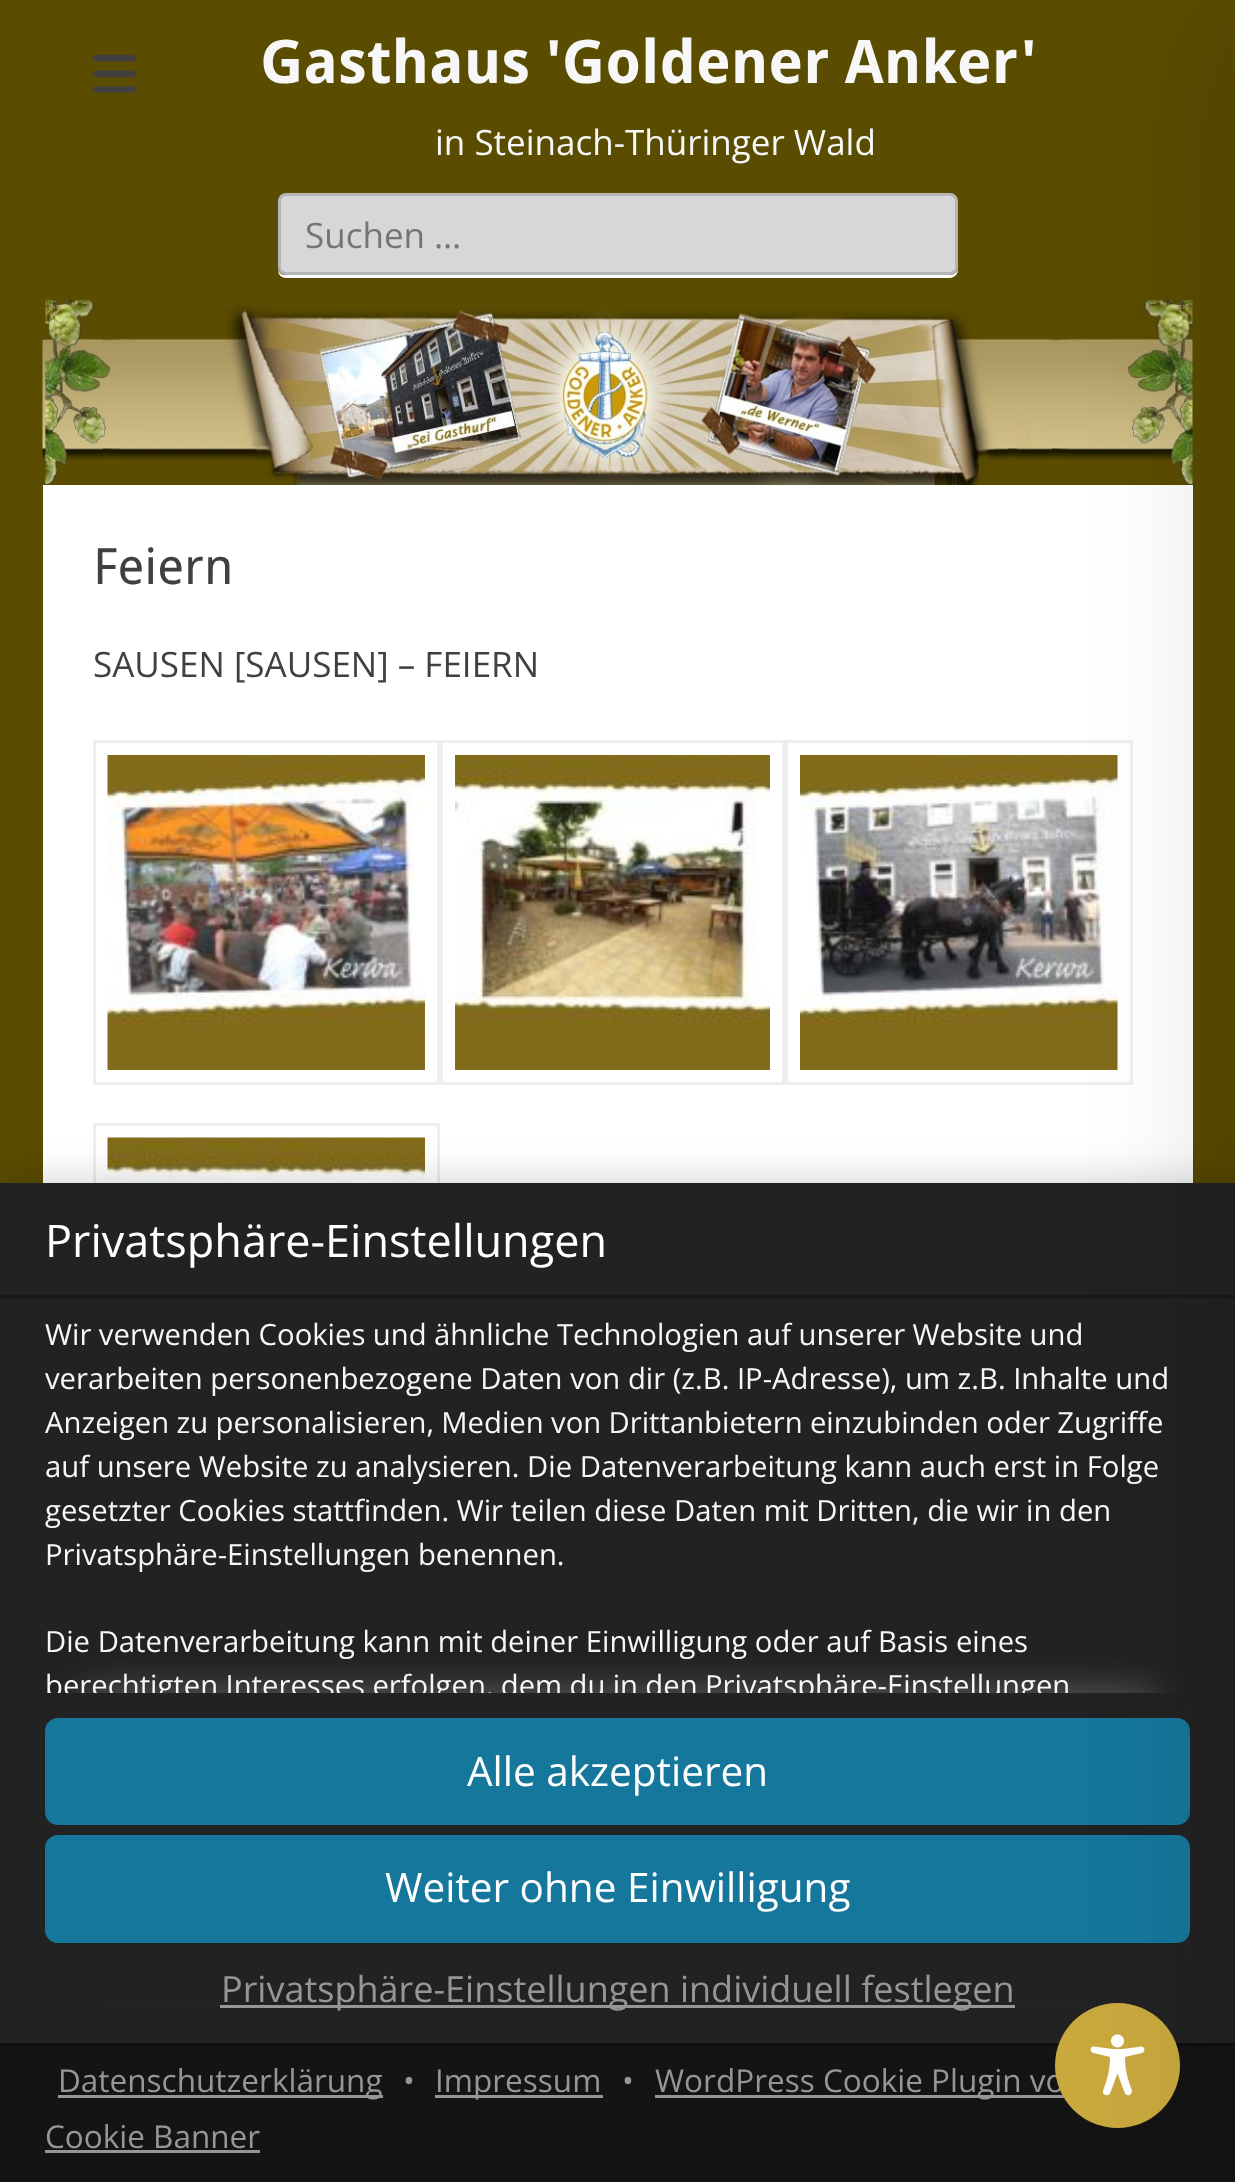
(async () => {
    const canvas = document.querySelector("canvas");
    canvas.width = 1235;
    canvas.height = 2182;
    const context = canvas.getContext("2d");
    context.miterLimit = 4;
    context.fontKerning = "normal";
    function write(s, x, y, font, color) {
        context.font = font;
        context.fillStyle = color;
        context.fillText(s, x, y);
    }
    function block(x, y, w, h, color) {
        context.fillStyle = color;
        context.fillRect(x, y, w, h);
    }
    function card(x, y, w, h, r, color) {
        context.fillStyle = color;
        context.beginPath();
        context.roundRect(x, y, w, h, r);
        context.fill();
    }
    async function photo(src, x, y, w, h) {
        const img = new Image();
        img.src = src;
        await img.decode();
        context.drawImage(img, x, y, w, h);
    }

    block(0, 0, 1235, 2182, "rgb(90, 76, 1)");
    await photo("media/1.png", 92, 55, 45, 38);
    write("Gasthaus 'Goldener Anker'", 260, 83, "bold 60px Droid Sans", "rgb(247, 247, 247)");
    write("in Steinach-Thüringer Wald", 435, 155, "35px Open Sans", "rgb(247, 247, 247)");
    context.fillStyle = "rgb(255, 255, 255)";
    context.beginPath();
    context.moveTo(278, 270);
    context.bezierCurveTo(278, 275, 282, 278, 286, 278);
    context.lineTo(950, 278);
    context.bezierCurveTo(954, 278, 958, 274, 958, 270);
    context.lineTo(958, 203);
    context.lineTo(958, 200);
    context.lineTo(958, 268);
    context.bezierCurveTo(958, 272, 954, 275, 950, 275);
    context.lineTo(285, 275);
    context.bezierCurveTo(282, 275, 279, 273, 278, 270);
    context.closePath();
    context.fill();
    context.fillStyle = "rgb(215, 215, 215)";
    context.beginPath();
    context.roundRect(279.5, 194.5, 677, 79, 6.5);
    context.fill();
    context.strokeStyle = "rgb(182, 182, 182)";
    context.lineWidth = 3;
    context.stroke();
    write("Suchen …", 305, 248, "35px Open Sans", "rgb(117, 117, 117)");
    await photo("media/2.png", 42, 300, 1151, 185);
    block(43, 485, 1150, 698, "rgb(255, 255, 255)");
    write("Feiern", 93, 584, "50px Droid Sans", "rgb(64, 64, 64)");
    write("SAUSEN [SAUSEN] – FEIERN", 93, 677, "35px Open Sans", "rgb(64, 64, 64)");
    context.strokeStyle = "rgb(238, 238, 238)";
    context.strokeRect(94.5, 741.5, 344, 342);
    await photo("media/3.png", 107, 755, 318, 315);
    context.strokeRect(441.5, 741.5, 342, 342);
    await photo("media/4.png", 455, 755, 315, 315);
    context.strokeRect(786.5, 741.5, 345, 342);
    await photo("media/5.png", 800, 755, 318, 315);
    context.strokeRect(94.5, 1124.5, 344, 344);
    await photo("media/6.png", 107, 1137, 318, 46);
    context.fillStyle = "rgba(0, 0, 0, 0.2)";
    context.filter = "blur(21px)";
    context.beginPath();
    context.rect(0, 1183, 1235, 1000);
    context.fill();
    context.filter = "none";
    block(0, 1183, 1235, 112, "rgb(34, 34, 34)");
    block(0, 1295, 1235, 3, "rgb(25, 25, 25)");
    block(0, 1298, 1235, 745, "rgb(34, 34, 34)");
    context.wordSpacing = "-0.25px";
    write("berechtigten Interesses erfolgen, dem du in den Privatsphäre-Einstellungen", 45, 1696, "29.25px Open Sans", "rgb(247, 247, 247)");
    context.fillStyle = "rgba(249, 249, 249, 0.3)";
    context.filter = "blur(19px)";
    context.beginPath();
    context.rect(83, 1693, 1070, 275);
    context.fill();
    context.filter = "none";
    block(47, 1693, 1139, 308, "rgb(34, 34, 34)");
    card(45, 1718, 1145, 107, 13, "rgb(21, 119, 155)");
    card(45, 1835, 1145, 108, 13, "rgb(21, 119, 155)");
    block(0, 2046, 1235, 136, "rgb(20, 20, 20)");
    block(0, 2043, 1235, 3, "rgb(15, 15, 15)");
    block(655, 2095, 410, 3, "rgb(150, 150, 150)");
    context.wordSpacing = "0px";
    write("WordPress Cookie Plugin vo", 655, 2092, "31.5px Open Sans", "rgb(150, 150, 150)");
    context.fillStyle = "rgb(201, 169, 62)";
    context.beginPath();
    context.arc(1117.5, 2065.5, 62.5, 0, Math.PI * 2);
    context.fill();
    await photo("media/7.png", 1090, 2034, 55, 62);
    context.fillStyle = "rgba(0, 0, 0, 0.2)";
    context.filter = "blur(75px)";
    context.beginPath();
    context.rect(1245, 25, 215, 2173);
    context.fill();
    context.filter = "none";
    write("Privatsphäre-Einstellungen", 45, 1257, "45px Open Sans", "rgb(255, 255, 255)");
    context.wordSpacing = "-0.1px";
    write("Wir verwenden Cookies und ähnliche Technologien auf unserer Website und", 45, 1345, "29.25px Open Sans", "rgb(247, 247, 247)");
    context.wordSpacing = "0px";
    write("verarbeiten personenbezogene Daten von dir (z.B. IP-Adresse), um z.B. Inhalte und", 45, 1389, "29.25px Open Sans", "rgb(247, 247, 247)");
    context.wordSpacing = "-0.25px";
    write("Anzeigen zu personalisieren, Medien von Drittanbietern einzubinden oder Zugriffe", 45, 1433, "29.25px Open Sans", "rgb(247, 247, 247)");
    context.wordSpacing = "0px";
    write("auf unsere Website zu analysieren. Die Datenverarbeitung kann auch erst in Folge", 45, 1477, "29.25px Open Sans", "rgb(247, 247, 247)");
    write("gesetzter Cookies stattfinden. Wir teilen diese Daten mit Dritten, die wir in den", 45, 1521, "29.25px Open Sans", "rgb(247, 247, 247)");
    write("Privatsphäre-Einstellungen benennen.", 45, 1565, "29.25px Open Sans", "rgb(247, 247, 247)");
    write("Die Datenverarbeitung kann mit deiner Einwilligung oder auf Basis eines", 45, 1652, "29.25px Open Sans", "rgb(247, 247, 247)");
    write("Alle akzeptieren", 467, 1786, "40.5px Open Sans", "rgb(255, 255, 255)");
    write("Weiter ohne Einwilligung", 385, 1902, "40.5px Open Sans", "rgb(255, 255, 255)");
    block(220, 2005, 795, 3, "rgb(150, 150, 150)");
    write("Privatsphäre-Einstellungen individuell festlegen", 221, 2002, "36px Open Sans", "rgb(150, 150, 150)");
    block(58, 2095, 325, 3, "rgb(150, 150, 150)");
    write("Datenschutzerklärung", 58, 2092, "31.5px Open Sans", "rgb(150, 150, 150)");
    write("•", 403, 2092, "31.5px Open Sans", "rgb(150, 150, 150)");
    block(435, 2095, 168, 3, "rgb(150, 150, 150)");
    write("Impressum", 435, 2092, "31.5px Open Sans", "rgb(150, 150, 150)");
    write("•", 622, 2092, "31.5px Open Sans", "rgb(150, 150, 150)");
    write("Cookie Banner", 45, 2148, "31.5px Open Sans", "rgb(150, 150, 150)");
    block(45, 2150, 215, 3, "rgb(150, 150, 150)");
})();
